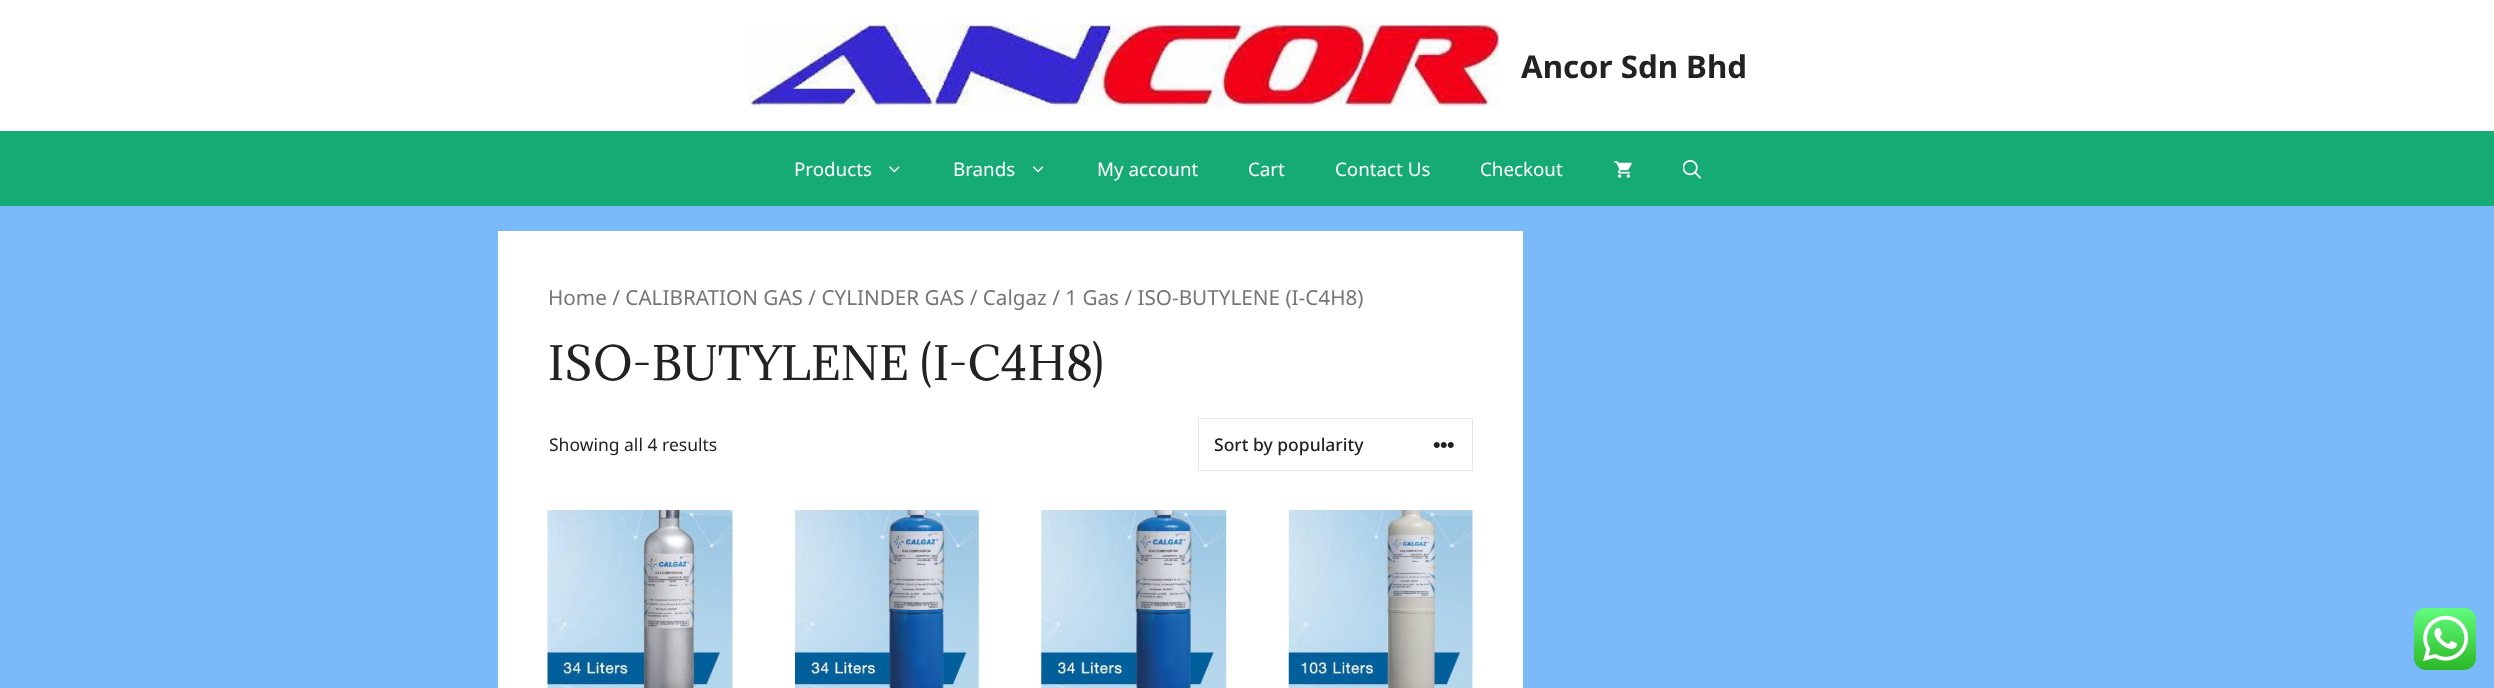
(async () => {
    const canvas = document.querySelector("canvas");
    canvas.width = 2494;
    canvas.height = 688;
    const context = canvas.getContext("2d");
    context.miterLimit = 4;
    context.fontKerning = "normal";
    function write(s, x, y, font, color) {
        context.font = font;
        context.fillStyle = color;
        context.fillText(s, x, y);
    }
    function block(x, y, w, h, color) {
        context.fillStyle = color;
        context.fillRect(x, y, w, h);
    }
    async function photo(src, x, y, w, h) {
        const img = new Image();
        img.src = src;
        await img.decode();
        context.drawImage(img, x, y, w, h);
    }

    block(0, 0, 2494, 688, "rgb(122, 186, 249)");
    block(0, 0, 2494, 131, "rgb(255, 255, 255)");
    await photo("media/1.png", 748, 25, 751, 82);
    write("Ancor Sdn Bhd", 1521, 78, "bold 31.25px Noto Sans", "rgb(34, 34, 34)");
    block(0, 131, 2494, 75, "rgb(22, 170, 116)");
    write("Products", 794, 176, "18.75px Noto Sans", "rgb(255, 255, 255)");
    await photo("media/2.png", 889, 166, 11, 7);
    write("Brands", 953, 176, "18.75px Noto Sans", "rgb(255, 255, 255)");
    await photo("media/3.png", 1033, 166, 11, 7);
    write("My account", 1097, 176, "18.75px Noto Sans", "rgb(255, 255, 255)");
    write("Cart", 1248, 176, "18.75px Noto Sans", "rgb(255, 255, 255)");
    write("Contact Us", 1335, 176, "18.75px Noto Sans", "rgb(255, 255, 255)");
    write("Checkout", 1480, 176, "18.75px Noto Sans", "rgb(255, 255, 255)");
    await photo("media/4.png", 1614, 161, 18, 17);
    await photo("media/5.png", 1683, 160, 18, 19);
    block(498, 231, 1025, 457, "rgb(255, 255, 255)");
    write("Home / CALIBRATION GAS / CYLINDER GAS / Calgaz / 1 Gas / ISO-BUTYLENE (I-C4H8)", 548, 305, "20.7px Noto Sans", "rgb(118, 118, 118)");
    write("ISO-BUTYLENE (I-C4H8)", 548, 380, "43.75px Adamina", "rgb(34, 34, 34)");
    write("Showing all 4 results", 549, 451, "17.5px Noto Sans", "rgb(34, 34, 34)");
    context.strokeStyle = "rgb(230, 230, 230)";
    context.strokeRect(1198.5, 418.5, 274, 52);
    write("Sort by popularity", 1214, 451, "500 17.5px Noto Sans", "rgb(34, 34, 34)");
    await photo("media/6.png", 1433, 442, 21, 6);
    await photo("media/7.png", 547, 510, 186, 178);
    await photo("media/8.png", 795, 510, 184, 178);
    await photo("media/9.png", 1041, 510, 186, 178);
    await photo("media/10.png", 1288, 510, 185, 178);
    await photo("media/11.png", 2414, 608, 62, 62);
})();
